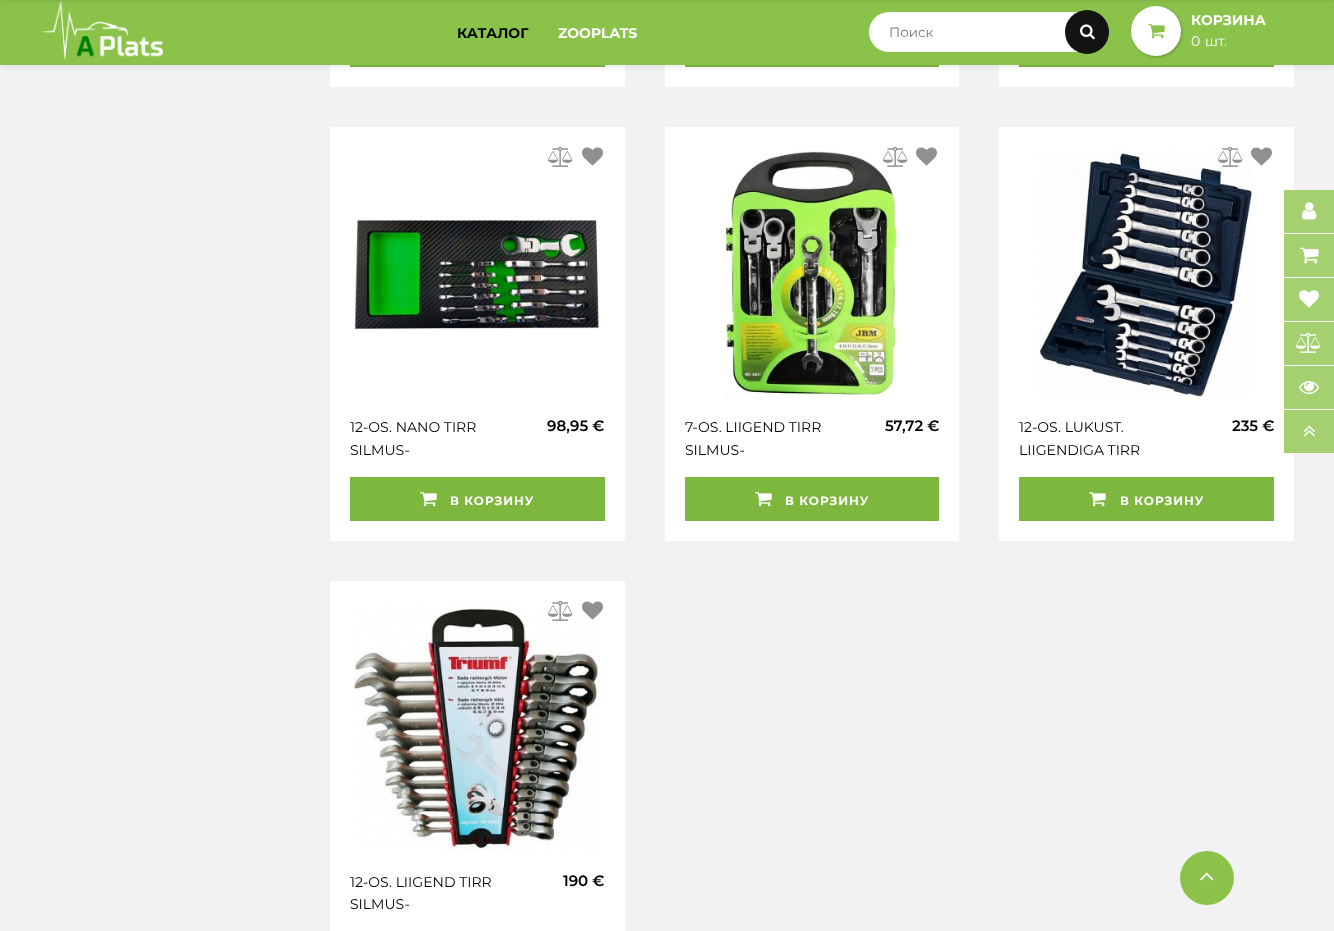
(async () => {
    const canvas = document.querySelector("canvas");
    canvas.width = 1334;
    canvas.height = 931;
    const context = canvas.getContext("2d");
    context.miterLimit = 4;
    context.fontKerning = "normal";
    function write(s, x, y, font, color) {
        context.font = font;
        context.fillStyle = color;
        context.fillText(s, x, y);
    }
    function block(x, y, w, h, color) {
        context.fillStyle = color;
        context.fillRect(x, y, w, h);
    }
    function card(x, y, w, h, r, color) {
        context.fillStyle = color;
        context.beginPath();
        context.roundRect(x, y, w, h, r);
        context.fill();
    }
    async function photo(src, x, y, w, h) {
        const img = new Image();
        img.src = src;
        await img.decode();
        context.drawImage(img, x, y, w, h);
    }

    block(0, 0, 1334, 931, "rgb(242, 242, 242)");
    block(1294, 453, 40, 1, "rgb(249, 249, 249)");
    block(1294, 409, 40, 1, "rgb(249, 249, 249)");
    block(1294, 365, 40, 1, "rgb(249, 249, 249)");
    block(1294, 321, 40, 1, "rgb(249, 249, 249)");
    block(1294, 277, 40, 1, "rgb(249, 249, 249)");
    block(1294, 233, 40, 1, "rgb(249, 249, 249)");
    block(330, 65, 295, 22, "rgb(255, 255, 255)");
    block(350, 65, 255, 2, "rgb(126, 183, 61)");
    block(665, 65, 294, 22, "rgb(255, 255, 255)");
    block(685, 65, 254, 2, "rgb(126, 183, 61)");
    block(999, 65, 295, 22, "rgb(255, 255, 255)");
    block(1019, 65, 255, 2, "rgb(126, 183, 61)");
    context.fillStyle = "rgba(0, 0, 0, 0.1)";
    context.filter = "blur(3px)";
    context.beginPath();
    context.rect(1, 1, 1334, 65);
    context.fill();
    context.filter = "none";
    block(0, 0, 1334, 65, "rgb(139, 195, 74)");
    await photo("media/1.png", 40, 1, 124, 59);
    context.fillStyle = "rgba(0, 0, 0, 0.24)";
    context.filter = "blur(1.5px)";
    context.beginPath();
    context.roundRect(1132, 7, 50, 50, 25);
    context.fill();
    context.filter = "none";
    context.fillStyle = "rgb(255, 255, 255)";
    context.beginPath();
    context.arc(1156, 31, 25, 0, Math.PI * 2);
    context.fill();
    context.fillStyle = "rgba(0, 0, 0, 0.1)";
    context.filter = "blur(2px)";
    context.beginPath();
    context.rect(1, -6, 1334, 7);
    context.fill();
    context.filter = "none";
    write("КАТАЛОГ", 457, 38, "bold 14px Montserrat", "rgb(0, 0, 0)");
    write("ZOOPLATS", 558, 38, "bold 14px Montserrat", "rgb(255, 255, 255)");
    card(869, 12, 230, 40, 20, "rgb(255, 255, 255)");
    write("Поиск", 889, 37, "13.5px Montserrat", "rgb(117, 117, 117)");
    context.fillStyle = "rgb(19, 19, 19)";
    context.beginPath();
    context.arc(1087, 32, 22, 0, Math.PI * 2);
    context.fill();
    await photo("media/2.png", 1080, 24, 15, 16);
    await photo("media/3.png", 1148, 24, 17, 15);
    write("КОРЗИНА", 1191, 25, "bold 14px Montserrat", "rgb(255, 255, 255)");
    context.wordSpacing = "1px";
    write("0 шт.", 1191, 46, "14px Montserrat", "rgb(255, 255, 255)");
    block(330, 127, 295, 414, "rgb(255, 255, 255)");
    await photo("media/4.png", 548, 146, 25, 21);
    await photo("media/5.png", 582, 147, 21, 19);
    await photo("media/6.png", 354, 218, 247, 112);
    context.wordSpacing = "0px";
    write("12-OS. NANO TIRR", 350, 432, "14px Montserrat", "rgb(0, 0, 0)");
    write("SILMUS-", 350, 455, "14px Montserrat", "rgb(0, 0, 0)");
    write("98,95 €", 547, 431, "600 15px Montserrat", "rgb(0, 0, 0)");
    block(350, 477, 255, 44, "rgb(126, 183, 61)");
    await photo("media/7.png", 420, 492, 17, 15);
    context.letterSpacing = "1px";
    write("В КОРЗИНУ", 450, 505, "bold 12px Montserrat", "rgb(255, 255, 255)");
    block(665, 127, 294, 414, "rgb(255, 255, 255)");
    await photo("media/9.png", 724, 151, 174, 246);
    await photo("media/8.png", 883, 146, 25, 21);
    await photo("media/5.png", 916, 147, 21, 19);
    context.letterSpacing = "0px";
    write("7-OS. LIIGEND TIRR", 685, 432, "14px Montserrat", "rgb(0, 0, 0)");
    write("SILMUS-", 685, 455, "14px Montserrat", "rgb(0, 0, 0)");
    write("57,72 €", 885, 431, "600 15px Montserrat", "rgb(0, 0, 0)");
    block(685, 477, 254, 44, "rgb(126, 183, 61)");
    await photo("media/7.png", 755, 492, 17, 15);
    context.letterSpacing = "1px";
    write("В КОРЗИНУ", 785, 505, "bold 12px Montserrat", "rgb(255, 255, 255)");
    block(999, 127, 295, 414, "rgb(255, 255, 255)");
    await photo("media/12.png", 1039, 151, 213, 246);
    await photo("media/10.png", 1218, 146, 25, 21);
    await photo("media/11.png", 1251, 147, 21, 19);
    context.letterSpacing = "0px";
    write("12-OS. LUKUST.", 1019, 432, "14px Montserrat", "rgb(0, 0, 0)");
    write("LIIGENDIGA TIRR", 1019, 455, "14px Montserrat", "rgb(0, 0, 0)");
    write("235 €", 1232, 431, "600 15px Montserrat", "rgb(0, 0, 0)");
    block(1019, 477, 255, 44, "rgb(126, 183, 61)");
    await photo("media/7.png", 1089, 492, 17, 15);
    context.letterSpacing = "1px";
    write("В КОРЗИНУ", 1120, 505, "bold 12px Montserrat", "rgb(255, 255, 255)");
    block(330, 581, 295, 350, "rgb(255, 255, 255)");
    await photo("media/15.png", 354, 606, 247, 244);
    await photo("media/13.png", 548, 600, 25, 21);
    await photo("media/14.png", 582, 601, 21, 19);
    context.letterSpacing = "0px";
    write("12-OS. LIIGEND TIRR", 350, 887, "14px Montserrat", "rgb(0, 0, 0)");
    write("SILMUS-", 350, 909, "14px Montserrat", "rgb(0, 0, 0)");
    write("190 €", 563, 886, "600 15px Montserrat", "rgb(0, 0, 0)");
    block(1284, 190, 50, 43, "rgb(164, 208, 112)");
    await photo("media/16.png", 1302, 202, 15, 18);
    block(1284, 234, 50, 43, "rgb(164, 208, 112)");
    await photo("media/17.png", 1300, 247, 19, 17);
    block(1284, 278, 50, 43, "rgb(164, 208, 112)");
    await photo("media/18.png", 1299, 290, 20, 18);
    block(1284, 322, 50, 43, "rgb(164, 208, 112)");
    await photo("media/19.png", 1296, 332, 25, 21);
    block(1284, 366, 50, 43, "rgb(164, 208, 112)");
    await photo("media/20.png", 1299, 381, 20, 13);
    block(1284, 410, 50, 43, "rgb(164, 208, 112)");
    await photo("media/21.png", 1303, 425, 12, 12);
    context.fillStyle = "rgb(139, 195, 74)";
    context.beginPath();
    context.arc(1207, 878, 27, 0, Math.PI * 2);
    context.fill();
    await photo("media/22.png", 1200, 872, 14, 9);
})();
